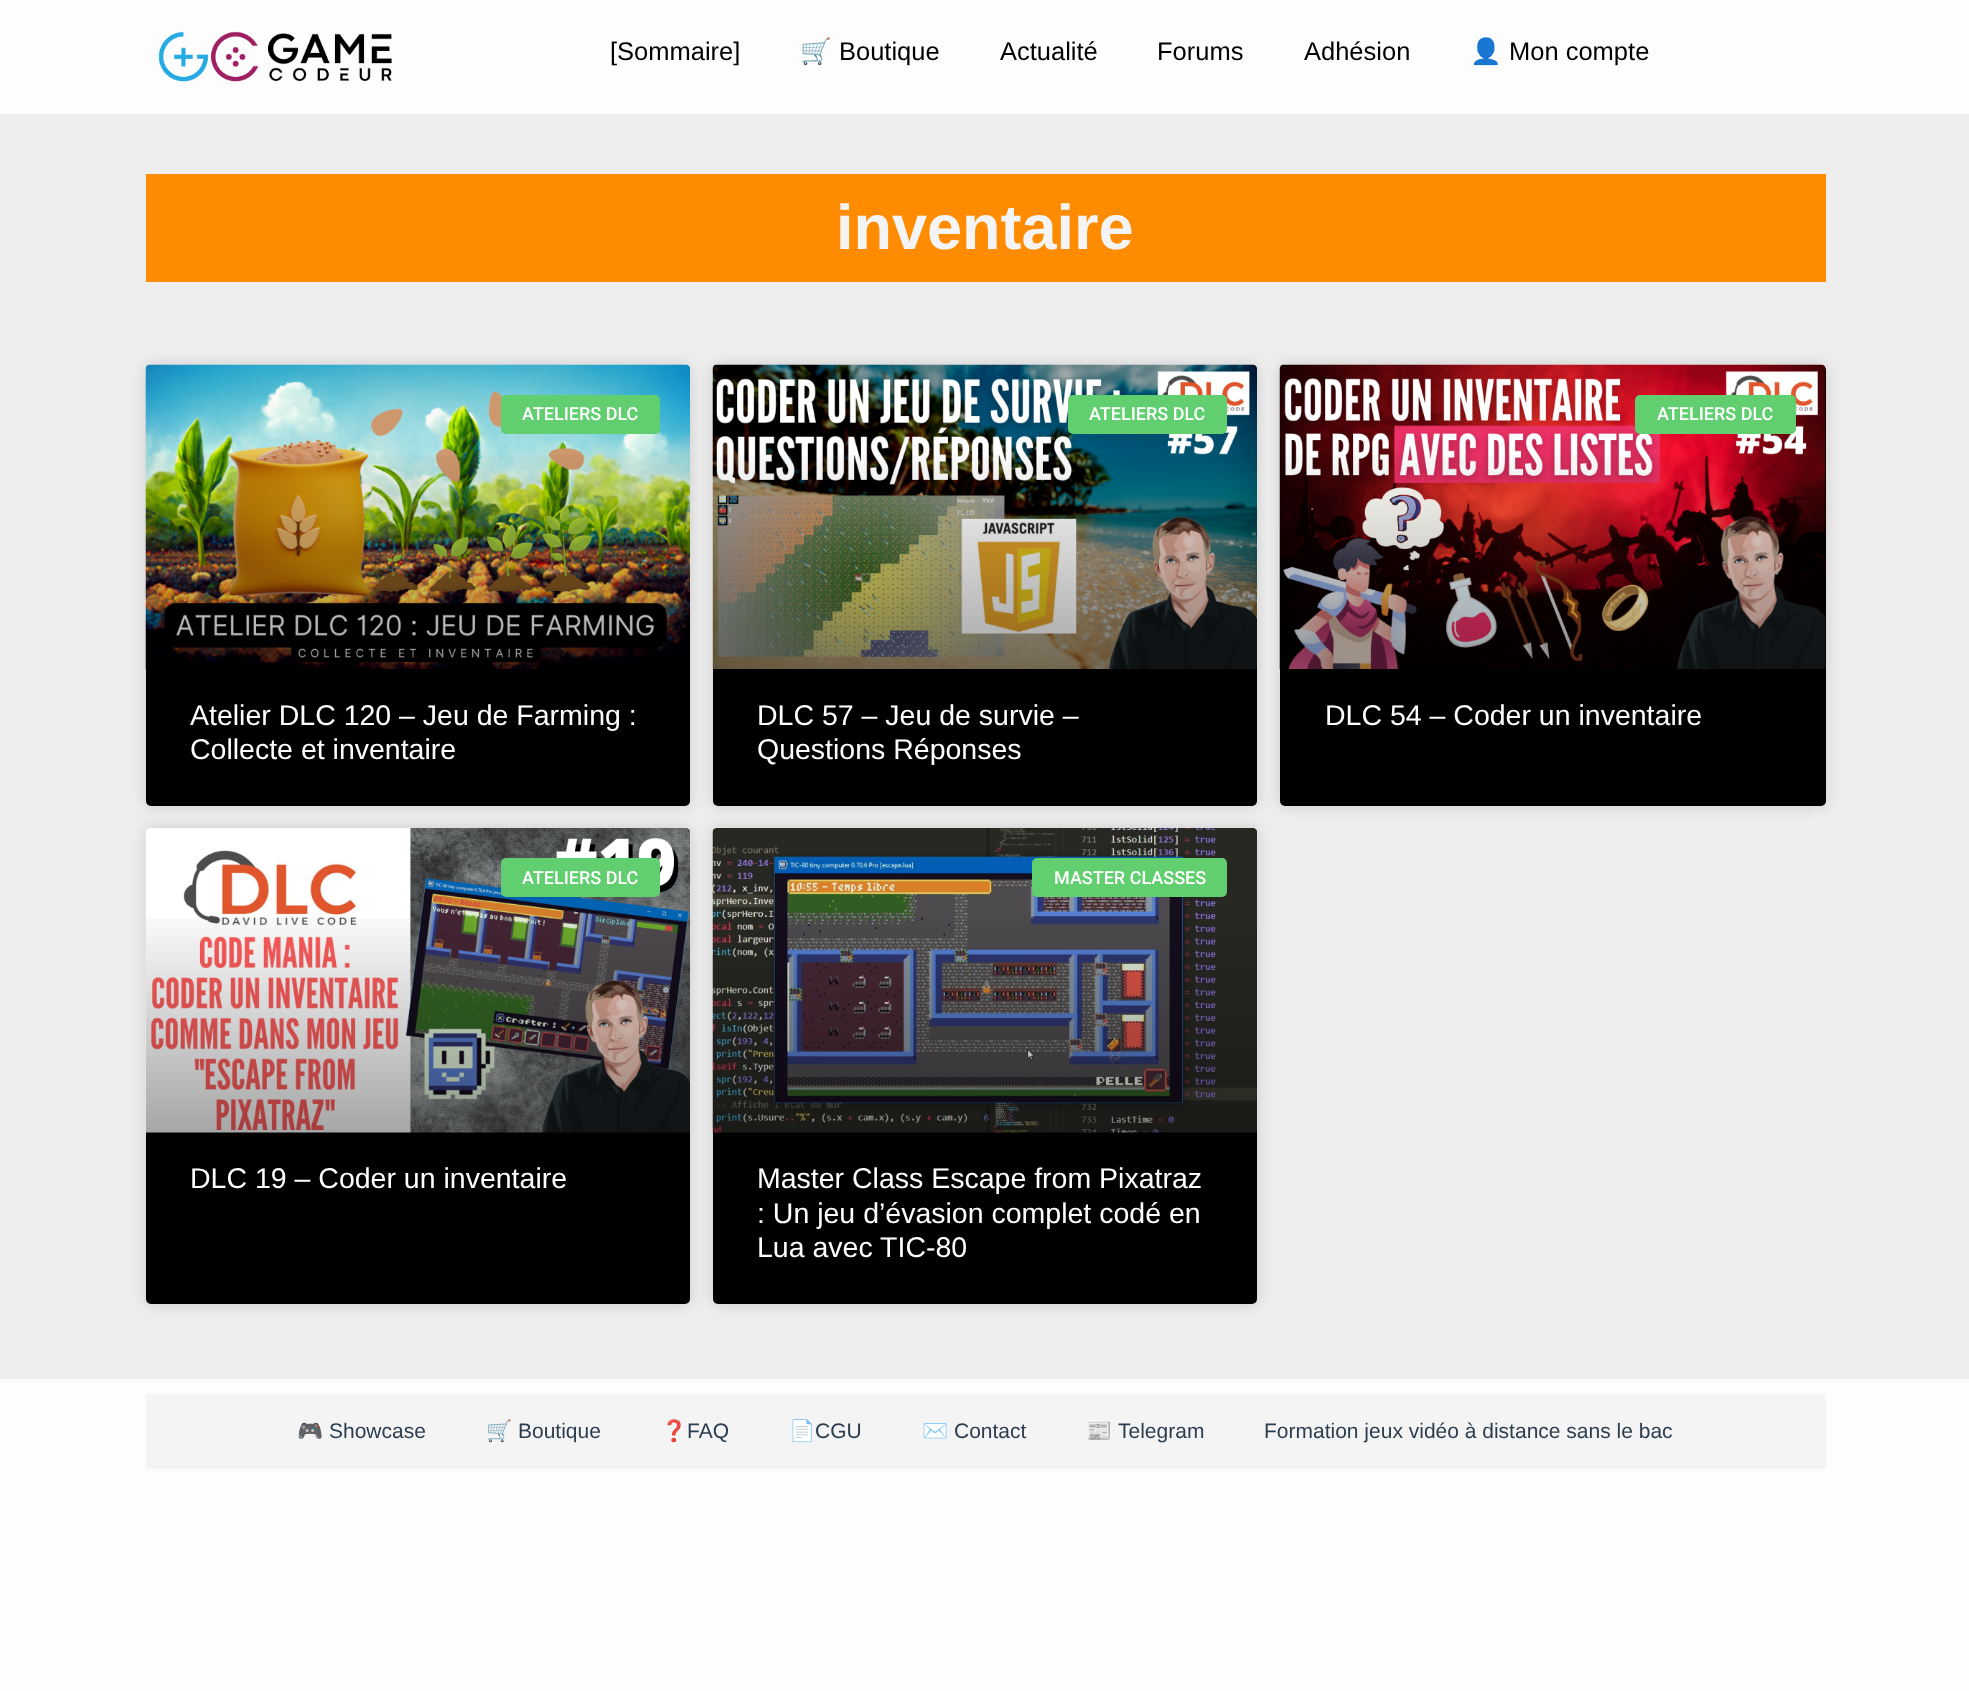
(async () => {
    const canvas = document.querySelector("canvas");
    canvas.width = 1969;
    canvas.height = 1691;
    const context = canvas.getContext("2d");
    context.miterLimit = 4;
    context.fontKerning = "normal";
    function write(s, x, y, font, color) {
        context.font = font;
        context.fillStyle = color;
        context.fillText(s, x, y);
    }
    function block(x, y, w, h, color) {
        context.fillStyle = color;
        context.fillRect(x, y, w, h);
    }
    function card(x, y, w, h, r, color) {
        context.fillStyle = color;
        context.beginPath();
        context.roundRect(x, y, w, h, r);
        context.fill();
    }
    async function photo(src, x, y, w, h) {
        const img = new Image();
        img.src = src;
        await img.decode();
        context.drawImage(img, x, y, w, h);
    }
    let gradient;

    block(0, 0, 1969, 1691, "rgb(253, 253, 253)");
    await photo("media/1.png", 158, 31, 234, 51);
    write("[Sommaire]", 610, 60, "25.5px Liberation Sans", "rgb(0, 0, 0)");
    write("🛒", 800, 60, "25.5px Noto Color Emoji", "rgb(0, 0, 0)");
    write("Boutique", 839, 60, "25.5px Liberation Sans", "rgb(0, 0, 0)");
    write("Actualité", 1000, 60, "25.5px Liberation Sans", "rgb(0, 0, 0)");
    write("Forums", 1157, 60, "25.5px Liberation Sans", "rgb(0, 0, 0)");
    write("Adhésion", 1304, 60, "25.5px Liberation Sans", "rgb(0, 0, 0)");
    write("👤", 1470, 60, "25.5px Noto Color Emoji", "rgb(0, 0, 0)");
    write("Mon compte", 1509, 60, "25.5px Liberation Sans", "rgb(0, 0, 0)");
    block(0, 114, 1969, 1265, "rgb(238, 238, 238)");
    block(146, 174, 1680, 108, "rgb(255, 140, 0)");
    write("inventaire", 836, 249, "bold 63px Liberation Sans", "rgb(244, 244, 244)");
    context.fillStyle = "rgba(0, 0, 0, 0.15)";
    context.filter = "blur(7.5px)";
    context.beginPath();
    context.roundRect(146, 365, 544, 441, 5);
    context.fill();
    context.filter = "none";
    card(146, 365, 544, 441, 5, "rgb(0, 0, 0)");
    await photo("media/2.png", 145, 364, 545, 305);
    gradient = context.createLinearGradient(418, 669, 418, 365);
    gradient.addColorStop(0, "rgba(0, 0, 0, 0.35)");
    gradient.addColorStop(0.75, "rgba(0, 0, 0, 0)");
    context.fillStyle = gradient;
    context.fillRect(146, 455, 544, 214);
    card(501, 395, 159, 39, 5, "rgb(97, 206, 112)");
    write("ATELIERS DLC", 522, 420, "500 18px Roboto", "rgb(255, 255, 255)");
    write("Atelier DLC 120 – Jeu de Farming :", 190, 725, "28.5px Liberation Sans", "rgb(255, 255, 255)");
    write("Collecte et inventaire", 190, 759, "28.5px Liberation Sans", "rgb(255, 255, 255)");
    context.fillStyle = "rgba(0, 0, 0, 0.15)";
    context.filter = "blur(7.5px)";
    context.beginPath();
    context.roundRect(713, 365, 544, 441, 5);
    context.fill();
    context.filter = "none";
    card(713, 365, 544, 441, 5, "rgb(0, 0, 0)");
    await photo("media/3.png", 712, 364, 545, 305);
    gradient = context.createLinearGradient(985, 669, 985, 365);
    gradient.addColorStop(0, "rgba(0, 0, 0, 0.35)");
    gradient.addColorStop(0.75, "rgba(0, 0, 0, 0)");
    context.fillStyle = gradient;
    context.fillRect(713, 455, 544, 214);
    card(1068, 395, 159, 39, 5, "rgb(97, 206, 112)");
    write("ATELIERS DLC", 1089, 420, "500 18px Roboto", "rgb(255, 255, 255)");
    write("DLC 57 – Jeu de survie –", 757, 725, "28.5px Liberation Sans", "rgb(255, 255, 255)");
    write("Questions Réponses", 757, 759, "28.5px Liberation Sans", "rgb(255, 255, 255)");
    context.fillStyle = "rgba(0, 0, 0, 0.15)";
    context.filter = "blur(7.5px)";
    context.beginPath();
    context.roundRect(1280, 365, 546, 441, 5);
    context.fill();
    context.filter = "none";
    card(1280, 365, 546, 441, 5, "rgb(0, 0, 0)");
    await photo("media/4.png", 1279, 364, 547, 305);
    gradient = context.createLinearGradient(1553, 669, 1553, 365);
    gradient.addColorStop(0, "rgba(0, 0, 0, 0.35)");
    gradient.addColorStop(0.75, "rgba(0, 0, 0, 0)");
    context.fillStyle = gradient;
    context.fillRect(1280, 455, 546, 214);
    card(1635, 395, 161, 39, 5, "rgb(97, 206, 112)");
    write("ATELIERS DLC", 1657, 420, "500 18px Roboto", "rgb(255, 255, 255)");
    write("DLC 54 – Coder un inventaire", 1325, 725, "28.5px Liberation Sans", "rgb(255, 255, 255)");
    context.fillStyle = "rgba(0, 0, 0, 0.15)";
    context.filter = "blur(7.5px)";
    context.beginPath();
    context.roundRect(146, 828, 544, 476, 5);
    context.fill();
    context.filter = "none";
    card(146, 828, 544, 476, 5, "rgb(0, 0, 0)");
    await photo("media/5.png", 145, 828, 545, 305);
    gradient = context.createLinearGradient(418, 1133, 418, 828);
    gradient.addColorStop(0, "rgba(0, 0, 0, 0.35)");
    gradient.addColorStop(0.75, "rgba(0, 0, 0, 0)");
    context.fillStyle = gradient;
    context.fillRect(146, 918, 544, 215);
    card(501, 858, 159, 39, 5, "rgb(97, 206, 112)");
    write("ATELIERS DLC", 522, 884, "500 18px Roboto", "rgb(255, 255, 255)");
    write("DLC 19 – Coder un inventaire", 190, 1188, "28.5px Liberation Sans", "rgb(255, 255, 255)");
    context.fillStyle = "rgba(0, 0, 0, 0.15)";
    context.filter = "blur(7.5px)";
    context.beginPath();
    context.roundRect(713, 828, 544, 476, 5);
    context.fill();
    context.filter = "none";
    card(713, 828, 544, 476, 5, "rgb(0, 0, 0)");
    await photo("media/6.png", 712, 828, 545, 305);
    gradient = context.createLinearGradient(985, 1133, 985, 828);
    gradient.addColorStop(0, "rgba(0, 0, 0, 0.35)");
    gradient.addColorStop(0.75, "rgba(0, 0, 0, 0)");
    context.fillStyle = gradient;
    context.fillRect(713, 918, 544, 215);
    card(1032, 858, 195, 39, 5, "rgb(97, 206, 112)");
    write("MASTER CLASSES", 1054, 884, "500 18px Roboto", "rgb(255, 255, 255)");
    write("Master Class Escape from Pixatraz", 757, 1188, "28.5px Liberation Sans", "rgb(255, 255, 255)");
    write(": Un jeu d’évasion complet codé en", 757, 1223, "28.5px Liberation Sans", "rgb(255, 255, 255)");
    write("Lua avec TIC-80", 757, 1257, "28.5px Liberation Sans", "rgb(255, 255, 255)");
    block(146, 1394, 1680, 75, "rgb(244, 244, 244)");
    write("🎮", 297, 1438, "21px Noto Color Emoji", "rgb(44, 61, 80)");
    write("Showcase", 329, 1438, "21px Liberation Sans", "rgb(44, 61, 80)");
    write("🛒", 486, 1438, "21px Noto Color Emoji", "rgb(44, 61, 80)");
    write("Boutique", 518, 1438, "21px Liberation Sans", "rgb(44, 61, 80)");
    write("❓", 661, 1438, "21px Noto Color Emoji", "rgb(44, 61, 80)");
    write("FAQ", 687, 1438, "21px Liberation Sans", "rgb(44, 61, 80)");
    write("📄", 789, 1438, "21px Noto Color Emoji", "rgb(44, 61, 80)");
    write("CGU", 815, 1438, "21px Liberation Sans", "rgb(44, 61, 80)");
    write("✉️", 922, 1438, "21px Noto Color Emoji", "rgb(44, 61, 80)");
    write("Contact", 954, 1438, "21px Liberation Sans", "rgb(44, 61, 80)");
    write("📰", 1086, 1438, "21px Noto Color Emoji", "rgb(44, 61, 80)");
    write("Telegram", 1118, 1438, "21px Liberation Sans", "rgb(44, 61, 80)");
    write("Formation jeux vidéo à distance sans le bac", 1264, 1438, "21px Liberation Sans", "rgb(44, 61, 80)");
})();
